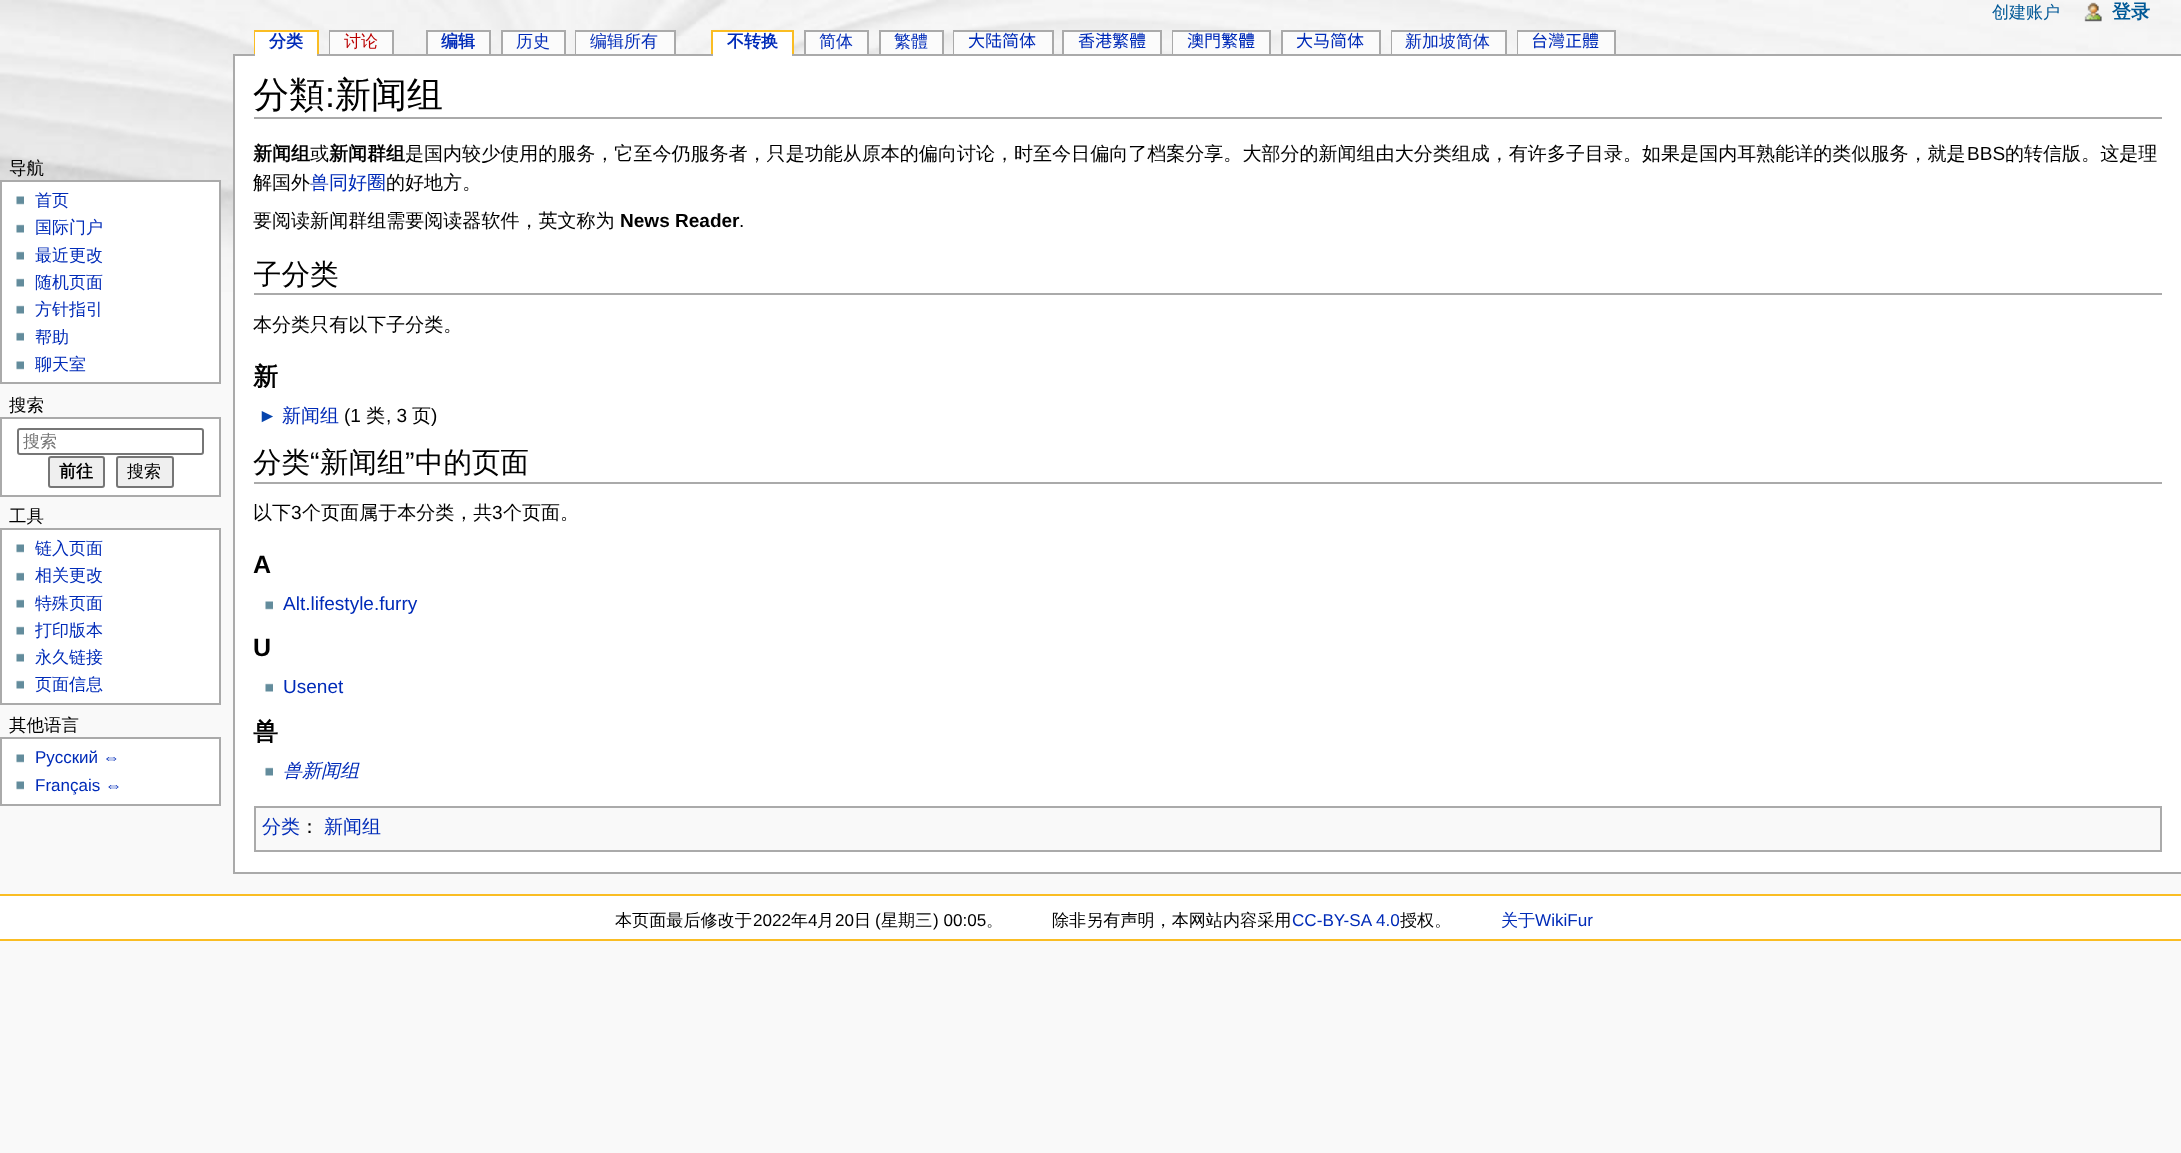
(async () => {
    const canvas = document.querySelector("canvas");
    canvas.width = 2181;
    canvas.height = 1153;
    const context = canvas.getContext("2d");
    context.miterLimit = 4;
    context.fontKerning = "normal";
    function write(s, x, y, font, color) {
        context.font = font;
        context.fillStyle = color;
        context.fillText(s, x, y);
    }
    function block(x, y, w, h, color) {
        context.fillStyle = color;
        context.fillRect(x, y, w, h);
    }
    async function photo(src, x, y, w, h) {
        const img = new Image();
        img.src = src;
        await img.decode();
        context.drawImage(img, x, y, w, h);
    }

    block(0, 0, 2181, 1153, "rgb(249, 249, 249)");
    await photo("media/1.png", 0, 0, 2181, 292);
    write("创建账户", 1992, 18, "500 17px WenQuanYi Zen Hei", "rgb(0, 88, 150)");
    await photo("media/2.png", 2084, 2, 18, 20);
    write("登录", 2112, 18, "bold 19px WenQuanYi Zen Hei", "rgb(0, 88, 150)");
    block(254, 30, 64, 2, "rgb(250, 189, 35)");
    block(254, 30, 2, 24, "rgb(250, 189, 35)");
    block(233, 54, 1948, 2, "rgb(170, 170, 170)");
    block(255, 32, 62, 24, "rgb(255, 255, 255)");
    write("分类", 269, 47, "bold 17px WenQuanYi Zen Hei", "rgb(0, 43, 184)");
    block(317, 30, 2, 24, "rgb(250, 189, 35)");
    block(329, 30, 64, 2, "rgb(170, 170, 170)");
    block(329, 30, 2, 24, "rgb(170, 170, 170)");
    block(330, 32, 62, 22, "rgb(251, 251, 251)");
    write("讨论", 344, 47, "500 17px WenQuanYi Zen Hei", "rgb(186, 0, 0)");
    block(392, 30, 2, 24, "rgb(170, 170, 170)");
    block(428, 32, 61, 22, "rgb(251, 251, 251)");
    write("编辑", 441, 47, "bold 17px WenQuanYi Zen Hei", "rgb(0, 43, 184)");
    block(426, 30, 65, 2, "rgb(170, 170, 170)");
    block(489, 30, 2, 24, "rgb(170, 170, 170)");
    block(426, 30, 2, 24, "rgb(170, 170, 170)");
    block(503, 32, 61, 22, "rgb(251, 251, 251)");
    write("历史", 516, 47, "500 17px WenQuanYi Zen Hei", "rgb(0, 43, 184)");
    block(501, 30, 65, 2, "rgb(170, 170, 170)");
    block(564, 30, 2, 24, "rgb(170, 170, 170)");
    block(501, 30, 2, 24, "rgb(170, 170, 170)");
    block(575, 30, 100, 2, "rgb(170, 170, 170)");
    block(575, 30, 2, 24, "rgb(170, 170, 170)");
    block(576, 32, 98, 22, "rgb(251, 251, 251)");
    write("编辑所有", 590, 47, "500 17px WenQuanYi Zen Hei", "rgb(0, 43, 184)");
    block(674, 30, 2, 24, "rgb(170, 170, 170)");
    block(713, 32, 79, 24, "rgb(255, 255, 255)");
    write("不转换", 727, 47, "bold 17px WenQuanYi Zen Hei", "rgb(0, 43, 184)");
    block(711, 30, 83, 2, "rgb(250, 189, 35)");
    block(792, 30, 2, 24, "rgb(250, 189, 35)");
    block(711, 30, 2, 24, "rgb(250, 189, 35)");
    block(806, 32, 61, 22, "rgb(251, 251, 251)");
    write("简体", 819, 47, "500 17px WenQuanYi Zen Hei", "rgb(0, 43, 184)");
    block(804, 30, 65, 2, "rgb(170, 170, 170)");
    block(867, 30, 2, 24, "rgb(170, 170, 170)");
    block(804, 30, 2, 24, "rgb(170, 170, 170)");
    block(881, 32, 61, 22, "rgb(251, 251, 251)");
    write("繁體", 894, 47, "500 17px WenQuanYi Zen Hei", "rgb(0, 43, 184)");
    block(879, 30, 65, 2, "rgb(170, 170, 170)");
    block(942, 30, 2, 24, "rgb(170, 170, 170)");
    block(879, 30, 2, 24, "rgb(170, 170, 170)");
    block(953, 30, 100, 2, "rgb(170, 170, 170)");
    block(953, 30, 2, 24, "rgb(170, 170, 170)");
    block(954, 32, 98, 22, "rgb(251, 251, 251)");
    write("大陆简体", 968, 47, "17px Noto Sans CJK SC", "rgb(0, 43, 184)");
    block(1052, 30, 2, 24, "rgb(170, 170, 170)");
    block(1064, 32, 96, 22, "rgb(251, 251, 251)");
    write("香港繁體", 1078, 47, "17px Noto Sans CJK HK", "rgb(0, 43, 184)");
    block(1062, 30, 99, 2, "rgb(170, 170, 170)");
    block(1160, 30, 2, 24, "rgb(170, 170, 170)");
    block(1062, 30, 2, 24, "rgb(170, 170, 170)");
    block(1172, 30, 99, 2, "rgb(170, 170, 170)");
    block(1172, 30, 2, 24, "rgb(170, 170, 170)");
    block(1173, 32, 96, 22, "rgb(251, 251, 251)");
    write("澳門繁體", 1187, 47, "17px Chiron Hei HK", "rgb(0, 43, 184)");
    block(1269, 30, 2, 24, "rgb(170, 170, 170)");
    block(1283, 32, 96, 22, "rgb(251, 251, 251)");
    write("大马简体", 1296, 47, "17px Noto Sans CJK SC", "rgb(0, 43, 184)");
    block(1281, 30, 99, 2, "rgb(170, 170, 170)");
    block(1379, 30, 2, 24, "rgb(170, 170, 170)");
    block(1281, 30, 2, 24, "rgb(170, 170, 170)");
    block(1391, 30, 115, 2, "rgb(170, 170, 170)");
    block(1391, 30, 2, 24, "rgb(170, 170, 170)");
    block(1392, 32, 113, 22, "rgb(251, 251, 251)");
    write("新加坡简体", 1405, 47, "500 17px WenQuanYi Zen Hei", "rgb(0, 43, 184)");
    block(1505, 30, 2, 24, "rgb(170, 170, 170)");
    block(1517, 30, 99, 2, "rgb(170, 170, 170)");
    block(1517, 30, 2, 24, "rgb(170, 170, 170)");
    block(1518, 32, 96, 22, "rgb(251, 251, 251)");
    write("台灣正體", 1531, 47, "17px Noto Sans CJK TC", "rgb(0, 43, 184)");
    block(1614, 30, 2, 24, "rgb(170, 170, 170)");
    write("导航", 9, 174, "500 17.5px WenQuanYi Zen Hei", "rgb(0, 0, 0)");
    context.fillStyle = "rgb(255, 255, 255)";
    context.beginPath();
    context.rect(1, 181, 219, 202);
    context.fill();
    context.strokeStyle = "rgb(170, 170, 170)";
    context.lineWidth = 2;
    context.stroke();
    await photo("media/3.png", 16, 196, 8, 9);
    write("首页", 35, 206, "500 17px WenQuanYi Zen Hei", "rgb(0, 43, 184)");
    await photo("media/4.png", 16, 224, 8, 9);
    write("国际门户", 35, 233, "500 17px WenQuanYi Zen Hei", "rgb(0, 43, 184)");
    await photo("media/4.png", 16, 251, 8, 9);
    write("最近更改", 35, 261, "500 17px WenQuanYi Zen Hei", "rgb(0, 43, 184)");
    await photo("media/4.png", 16, 278, 8, 9);
    write("随机页面", 35, 288, "500 17px WenQuanYi Zen Hei", "rgb(0, 43, 184)");
    await photo("media/4.png", 16, 305, 8, 9);
    write("方针指引", 35, 315, "500 17px WenQuanYi Zen Hei", "rgb(0, 43, 184)");
    await photo("media/4.png", 16, 332, 8, 9);
    write("帮助", 35, 343, "500 17px WenQuanYi Zen Hei", "rgb(0, 43, 184)");
    await photo("media/3.png", 16, 361, 8, 9);
    write("聊天室", 35, 370, "500 17px WenQuanYi Zen Hei", "rgb(0, 43, 184)");
    write("搜索", 9, 411, "500 17.5px WenQuanYi Zen Hei", "rgb(0, 0, 0)");
    context.fillStyle = "rgb(255, 255, 255)";
    context.beginPath();
    context.rect(1, 418, 219, 78);
    context.fill();
    context.stroke();
    context.beginPath();
    context.roundRect(18, 429, 185, 25, 2);
    context.strokeStyle = "rgb(118, 118, 118)";
    context.stroke();
    write("搜索", 23, 447, "500 17px WenQuanYi Zen Hei", "rgb(117, 117, 117)");
    context.fillStyle = "rgb(239, 239, 239)";
    context.beginPath();
    context.roundRect(49, 457, 55, 30, 2);
    context.fill();
    context.stroke();
    write("前往", 59, 477, "bold 17px WenQuanYi Zen Hei", "rgb(0, 0, 0)");
    context.fillStyle = "rgb(239, 239, 239)";
    context.beginPath();
    context.roundRect(117, 457, 56, 30, 2);
    context.fill();
    context.stroke();
    write("搜索", 127, 477, "500 17px WenQuanYi Zen Hei", "rgb(0, 0, 0)");
    write("工具", 9, 522, "500 17.5px WenQuanYi Zen Hei", "rgb(0, 0, 0)");
    context.fillStyle = "rgb(255, 255, 255)";
    context.beginPath();
    context.rect(1, 529, 219, 175);
    context.fill();
    context.strokeStyle = "rgb(170, 170, 170)";
    context.stroke();
    await photo("media/3.png", 16, 544, 8, 9);
    write("链入页面", 35, 554, "500 17px WenQuanYi Zen Hei", "rgb(0, 43, 184)");
    await photo("media/4.png", 16, 572, 8, 9);
    write("相关更改", 35, 581, "500 17px WenQuanYi Zen Hei", "rgb(0, 43, 184)");
    await photo("media/4.png", 16, 599, 8, 9);
    write("特殊页面", 35, 609, "500 17px WenQuanYi Zen Hei", "rgb(0, 43, 184)");
    await photo("media/4.png", 16, 626, 8, 9);
    write("打印版本", 35, 636, "500 17px WenQuanYi Zen Hei", "rgb(0, 43, 184)");
    await photo("media/4.png", 16, 653, 8, 9);
    write("永久链接", 35, 663, "500 17px WenQuanYi Zen Hei", "rgb(0, 43, 184)");
    await photo("media/4.png", 16, 680, 8, 9);
    write("页面信息", 35, 690, "500 17px WenQuanYi Zen Hei", "rgb(0, 43, 184)");
    write("其他语言", 9, 731, "500 17.5px WenQuanYi Zen Hei", "rgb(0, 0, 0)");
    context.fillStyle = "rgb(255, 255, 255)";
    context.beginPath();
    context.rect(1, 738, 219, 67);
    context.fill();
    context.stroke();
    await photo("media/3.png", 16, 754, 8, 9);
    write("Русский ⇔", 35, 763, "17px Liberation Sans", "rgb(0, 43, 184)");
    await photo("media/3.png", 16, 781, 8, 9);
    write("Français ⇔", 35, 791, "17px Liberation Sans", "rgb(0, 43, 184)");
    block(235, 56, 1946, 816, "rgb(255, 255, 255)");
    block(233, 872, 1948, 2, "rgb(170, 170, 170)");
    block(233, 54, 2, 819, "rgb(170, 170, 170)");
    block(254, 117, 1908, 2, "rgb(170, 170, 170)");
    write("分類", 253, 107, "500 36px WenQuanYi Zen Hei", "rgb(0, 0, 0)");
    write(":", 325, 107, "36px Liberation Sans", "rgb(0, 0, 0)");
    write("新闻组", 335, 107, "500 36px WenQuanYi Zen Hei", "rgb(0, 0, 0)");
    write("新闻组", 253, 160, "bold 19.05px WenQuanYi Zen Hei", "rgb(0, 0, 0)");
    write("或", 310, 160, "500 19.05px WenQuanYi Zen Hei", "rgb(0, 0, 0)");
    write("新闻群组", 329, 160, "bold 19.05px WenQuanYi Zen Hei", "rgb(0, 0, 0)");
    write("是国内较少使用的服务，它至今仍服务者，只是功能从原本的偏向讨论，时至今日偏向了档案分享。大部分的新闻组由大分类组成，有许多子目录。如果是国内耳熟能详的类似服务，就是", 405, 160, "500 19.05px WenQuanYi Zen Hei", "rgb(0, 0, 0)");
    write("BBS", 1967, 160, "19.05px Liberation Sans", "rgb(0, 0, 0)");
    write("的转信版。这是理", 2005, 160, "500 19.05px WenQuanYi Zen Hei", "rgb(0, 0, 0)");
    write("解国外", 253, 189, "500 19.05px WenQuanYi Zen Hei", "rgb(0, 0, 0)");
    write("兽同好圈", 310, 189, "500 19.05px WenQuanYi Zen Hei", "rgb(0, 43, 184)");
    write("的好地方。", 386, 189, "500 19.05px WenQuanYi Zen Hei", "rgb(0, 0, 0)");
    write("要阅读新闻群组需要阅读器软件，英文称为", 253, 227, "500 19.05px WenQuanYi Zen Hei", "rgb(0, 0, 0)");
    write("News Reader", 620, 227, "bold 19.05px Liberation Sans", "rgb(0, 0, 0)");
    write(".", 739, 227, "19.05px Liberation Sans", "rgb(0, 0, 0)");
    block(254, 293, 1908, 2, "rgb(170, 170, 170)");
    context.save();
    context.beginPath();
    context.rect(254, 246, 1908, 47);
    context.clip();
    write("子分类", 253, 284, "500 28.5px WenQuanYi Zen Hei", "rgb(0, 0, 0)");
    context.restore();
    write("本分类只有以下子分类。", 253, 331, "500 19.05px WenQuanYi Zen Hei", "rgb(0, 0, 0)");
    write("新", 253, 385, "bold 25px WenQuanYi Zen Hei", "rgb(0, 0, 0)");
    write("►", 258, 422, "19.05px Liberation Sans", "rgb(6, 69, 173)");
    write("新闻组", 282, 422, "500 19.05px WenQuanYi Zen Hei", "rgb(0, 43, 184)");
    write("(1", 344, 422, "19.05px Liberation Sans", "rgb(0, 0, 0)");
    write("类", 366, 422, "500 19.05px WenQuanYi Zen Hei", "rgb(0, 0, 0)");
    write(", 3", 386, 422, "19.05px Liberation Sans", "rgb(0, 0, 0)");
    write("页", 412, 422, "500 19.05px WenQuanYi Zen Hei", "rgb(0, 0, 0)");
    write(")", 431, 422, "19.05px Liberation Sans", "rgb(0, 0, 0)");
    block(254, 482, 1908, 2, "rgb(170, 170, 170)");
    write("分类", 253, 472, "500 28.5px WenQuanYi Zen Hei", "rgb(0, 0, 0)");
    write("“", 310, 472, "28.5px Liberation Sans", "rgb(0, 0, 0)");
    write("新闻组", 320, 472, "500 28.5px WenQuanYi Zen Hei", "rgb(0, 0, 0)");
    write("”", 405, 472, "28.5px Liberation Sans", "rgb(0, 0, 0)");
    write("中的页面", 415, 472, "500 28.5px WenQuanYi Zen Hei", "rgb(0, 0, 0)");
    write("以下", 253, 519, "500 19.05px WenQuanYi Zen Hei", "rgb(0, 0, 0)");
    write("3", 291, 519, "19.05px Liberation Sans", "rgb(0, 0, 0)");
    write("个页面属于本分类，共", 302, 519, "500 19.05px WenQuanYi Zen Hei", "rgb(0, 0, 0)");
    write("3", 492, 519, "19.05px Liberation Sans", "rgb(0, 0, 0)");
    write("个页面。", 503, 519, "500 19.05px WenQuanYi Zen Hei", "rgb(0, 0, 0)");
    write("A", 253, 573, "bold 25px Liberation Sans", "rgb(0, 0, 0)");
    await photo("media/3.png", 265, 601, 8, 9);
    write("Alt.lifestyle.furry", 283, 610, "19.05px Liberation Sans", "rgb(0, 43, 184)");
    write("U", 253, 656, "bold 25px Liberation Sans", "rgb(0, 0, 0)");
    await photo("media/4.png", 265, 683, 8, 9);
    write("Usenet", 283, 693, "19.05px Liberation Sans", "rgb(0, 43, 184)");
    write("兽", 253, 740, "bold 25px WenQuanYi Zen Hei", "rgb(0, 0, 0)");
    await photo("media/4.png", 265, 767, 8, 9);
    write("兽新闻组", 283, 777, "italic 500 19.05px WenQuanYi Zen Hei", "rgb(0, 43, 184)");
    context.fillStyle = "rgb(249, 249, 249)";
    context.beginPath();
    context.rect(255, 807, 1906, 44);
    context.fill();
    context.stroke();
    write("分类", 262, 833, "500 19.05px WenQuanYi Zen Hei", "rgb(0, 43, 184)");
    write("：", 300, 833, "500 19.05px WenQuanYi Zen Hei", "rgb(0, 0, 0)");
    write("新闻组", 324, 833, "500 19.05px WenQuanYi Zen Hei", "rgb(0, 43, 184)");
    block(0, 896, 2181, 43, "rgb(255, 255, 255)");
    block(0, 894, 2181, 2, "rgb(250, 189, 35)");
    block(0, 939, 2181, 2, "rgb(250, 189, 35)");
    write("本页面最后修改于", 615, 926, "500 17.1px WenQuanYi Zen Hei", "rgb(0, 0, 0)");
    write("2022", 753, 926, "17.1px Liberation Sans", "rgb(0, 0, 0)");
    write("年", 791, 926, "500 17.1px WenQuanYi Zen Hei", "rgb(0, 0, 0)");
    write("4", 808, 926, "17.1px Liberation Sans", "rgb(0, 0, 0)");
    write("月", 817, 926, "500 17.1px WenQuanYi Zen Hei", "rgb(0, 0, 0)");
    write("20", 835, 926, "17.1px Liberation Sans", "rgb(0, 0, 0)");
    write("日", 854, 926, "500 17.1px WenQuanYi Zen Hei", "rgb(0, 0, 0)");
    write("(", 875, 926, "17.1px Liberation Sans", "rgb(0, 0, 0)");
    write("星期三", 881, 926, "500 17.1px WenQuanYi Zen Hei", "rgb(0, 0, 0)");
    write(") 00:05", 933, 926, "17.1px Liberation Sans", "rgb(0, 0, 0)");
    write("。", 986, 926, "500 17.1px WenQuanYi Zen Hei", "rgb(0, 0, 0)");
    write("除非另有声明，本网站内容采用", 1052, 926, "500 17.1px WenQuanYi Zen Hei", "rgb(0, 0, 0)");
    write("CC-BY-SA 4.0", 1292, 926, "17.1px Liberation Sans", "rgb(0, 43, 184)");
    write("授权。", 1400, 926, "500 17.1px WenQuanYi Zen Hei", "rgb(0, 0, 0)");
    write("关于", 1501, 926, "500 17.1px WenQuanYi Zen Hei", "rgb(0, 43, 184)");
    write("WikiFur", 1535, 926, "17.1px Liberation Sans", "rgb(0, 43, 184)");
})();
